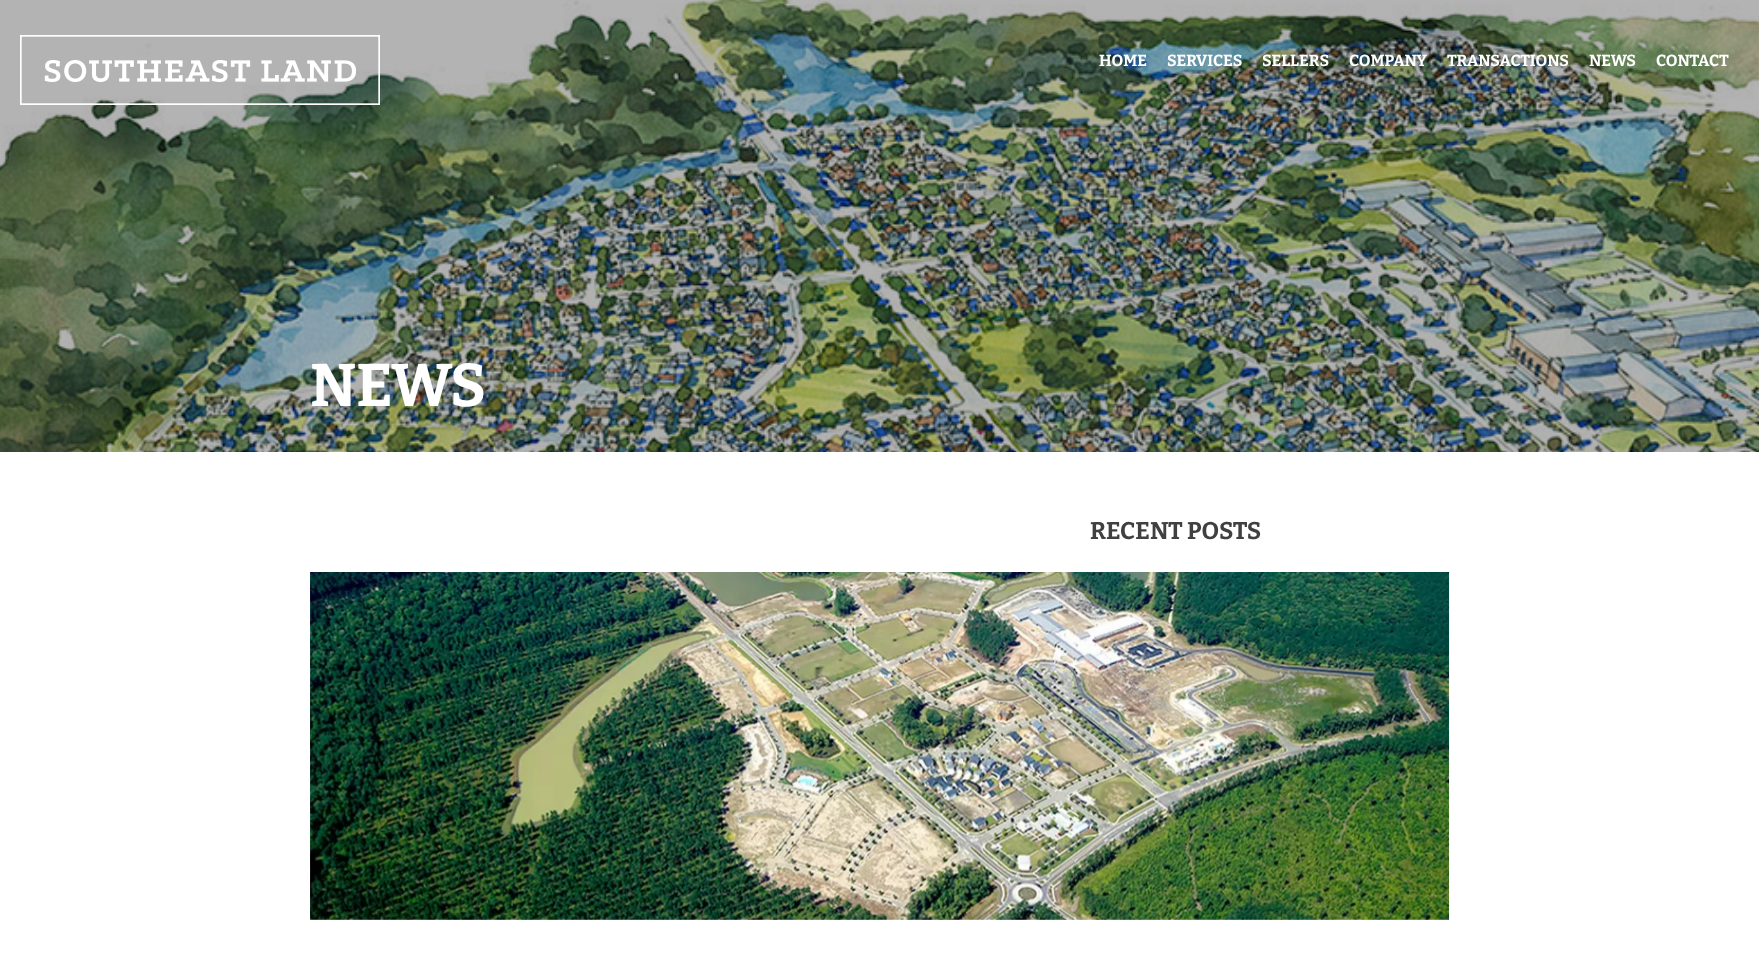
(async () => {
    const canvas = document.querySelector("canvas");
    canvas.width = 1759;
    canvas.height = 962;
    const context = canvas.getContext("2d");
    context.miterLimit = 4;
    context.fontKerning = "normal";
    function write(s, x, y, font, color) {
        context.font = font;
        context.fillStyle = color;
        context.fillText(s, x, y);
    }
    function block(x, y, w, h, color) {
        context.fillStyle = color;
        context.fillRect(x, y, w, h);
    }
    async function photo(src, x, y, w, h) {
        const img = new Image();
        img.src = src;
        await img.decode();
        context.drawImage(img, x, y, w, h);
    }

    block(0, 0, 1759, 962, "rgb(255, 255, 255)");
    await photo("media/2.png", 0, 0, 1759, 452);
    await photo("media/1.png", 20, 35, 360, 70);
    write("HOME", 1099, 66, "bold 16px Bitter", "rgb(255, 255, 255)");
    write("SERVICES", 1167, 66, "bold 16px Bitter", "rgb(255, 255, 255)");
    write("SELLERS", 1262, 66, "bold 16px Bitter", "rgb(255, 255, 255)");
    write("COMPANY", 1349, 66, "bold 16px Bitter", "rgb(255, 255, 255)");
    write("TRANSACTIONS", 1447, 66, "bold 16px Bitter", "rgb(255, 255, 255)");
    write("NEWS", 1589, 66, "bold 16px Bitter", "rgb(255, 255, 255)");
    write("CONTACT", 1656, 66, "bold 16px Bitter", "rgb(255, 255, 255)");
    write("NEWS", 310, 406, "bold 60px Bitter", "rgb(255, 255, 255)");
    write("RECENT POSTS", 1090, 539, "bold 24px Bitter", "rgb(64, 64, 64)");
    await photo("media/3.png", 310, 572, 1140, 348);
})();
